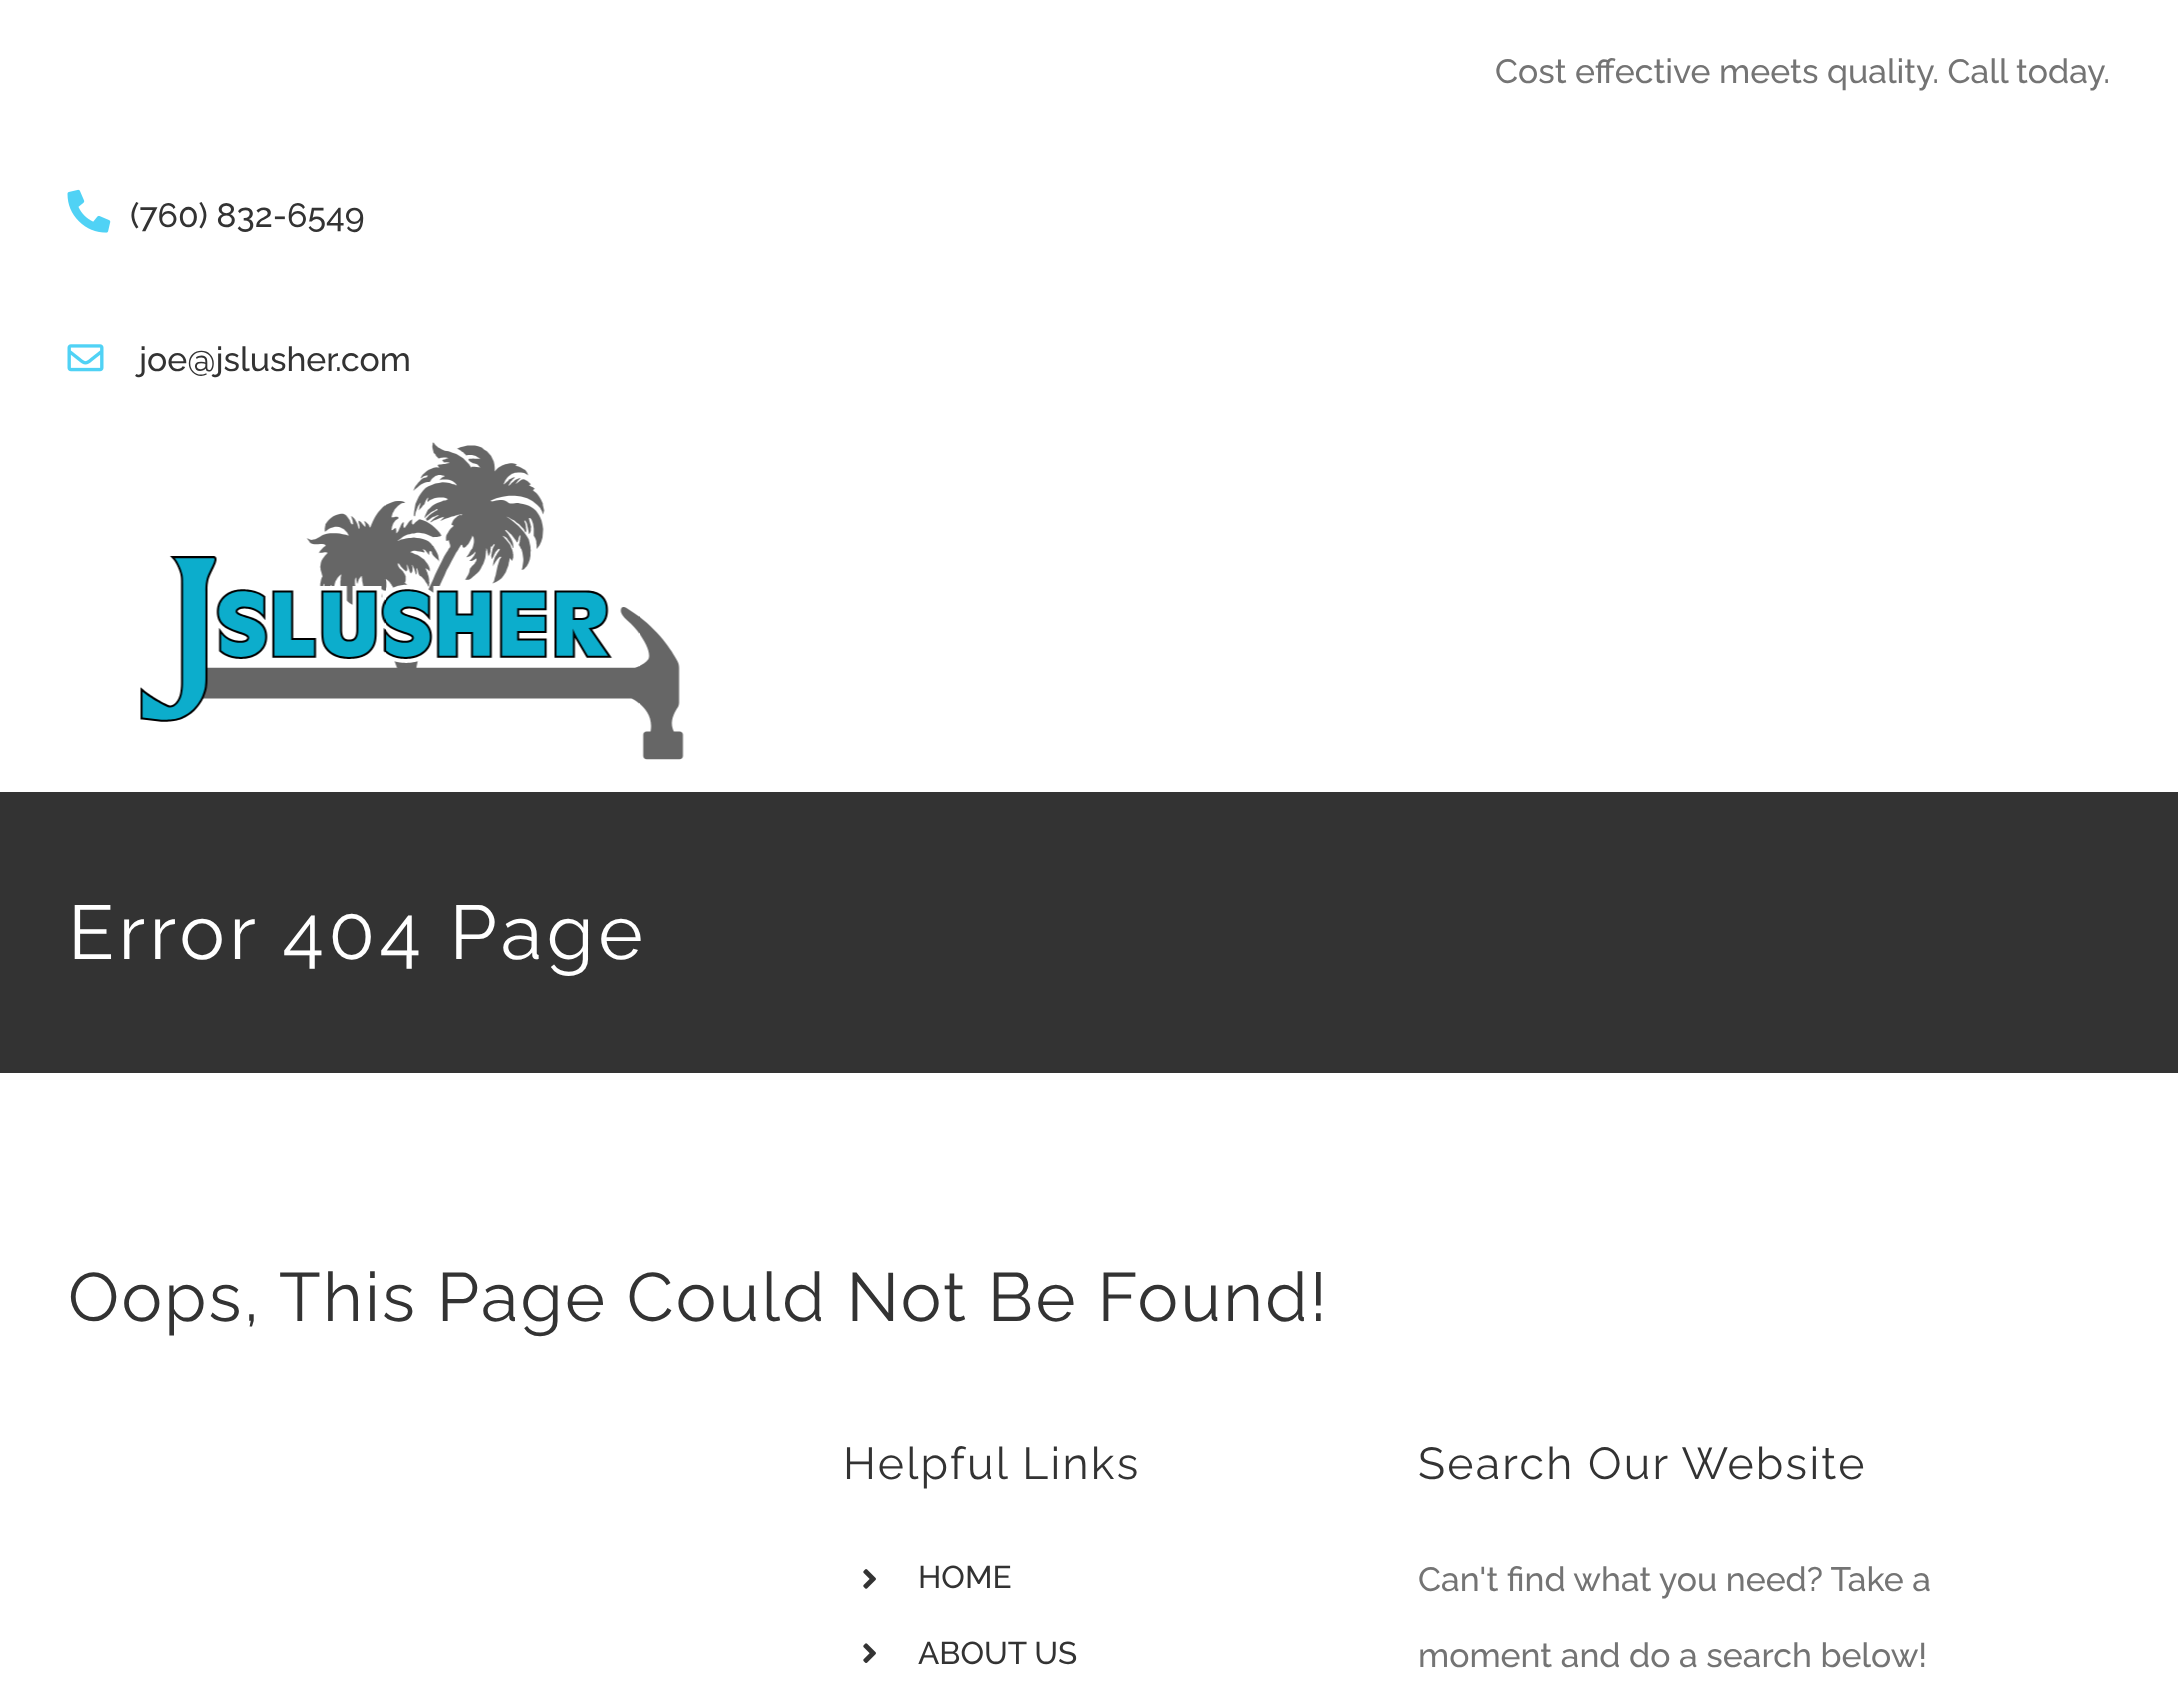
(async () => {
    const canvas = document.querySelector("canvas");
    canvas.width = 2178;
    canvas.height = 1707;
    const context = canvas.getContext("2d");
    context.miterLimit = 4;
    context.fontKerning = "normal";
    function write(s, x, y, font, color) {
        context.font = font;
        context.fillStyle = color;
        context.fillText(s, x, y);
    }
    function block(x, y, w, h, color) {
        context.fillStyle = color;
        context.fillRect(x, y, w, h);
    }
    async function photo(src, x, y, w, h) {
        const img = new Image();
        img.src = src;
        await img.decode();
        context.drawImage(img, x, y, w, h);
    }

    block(0, 0, 2178, 1707, "rgb(255, 255, 255)");
    write("Cost effective meets quality. Call today.", 1495, 83, "500 33.75px Raleway", "rgb(116, 116, 116)");
    await photo("media/1.png", 67, 189, 44, 44);
    write("(760) 832-6549", 130, 227, "500 33.75px Raleway", "rgb(51, 51, 51)");
    await photo("media/2.png", 67, 344, 37, 28);
    write("joe@jslusher.com", 139, 371, "500 33.75px Raleway", "rgb(51, 51, 51)");
    await photo("media/3.png", 140, 442, 544, 318);
    block(0, 792, 2178, 281, "rgb(51, 51, 51)");
    context.letterSpacing = "4.5px";
    write("Error 404 Page", 68, 959, "76px Raleway", "rgb(255, 255, 255)");
    context.letterSpacing = "2.25px";
    write("Oops, This Page Could Not Be Found!", 68, 1321, "68.2px Raleway", "rgb(51, 51, 51)");
    write("Helpful Links", 843, 1479, "44.6px Raleway", "rgb(51, 51, 51)");
    await photo("media/4.png", 863, 1569, 13, 20);
    context.letterSpacing = "0px";
    write("HOME", 918, 1588, "500 31.5px Raleway", "rgb(51, 51, 51)");
    await photo("media/5.png", 863, 1643, 13, 20);
    write("ABOUT US", 918, 1664, "500 31.5px Raleway", "rgb(51, 51, 51)");
    context.letterSpacing = "2.25px";
    write("Search Our Website", 1418, 1479, "44.6px Raleway", "rgb(51, 51, 51)");
    context.letterSpacing = "0px";
    write("Can't find what you need? Take a", 1418, 1591, "500 33.75px Raleway", "rgb(116, 116, 116)");
    write("moment and do a search below!", 1418, 1667, "500 33.75px Raleway", "rgb(116, 116, 116)");
})();
